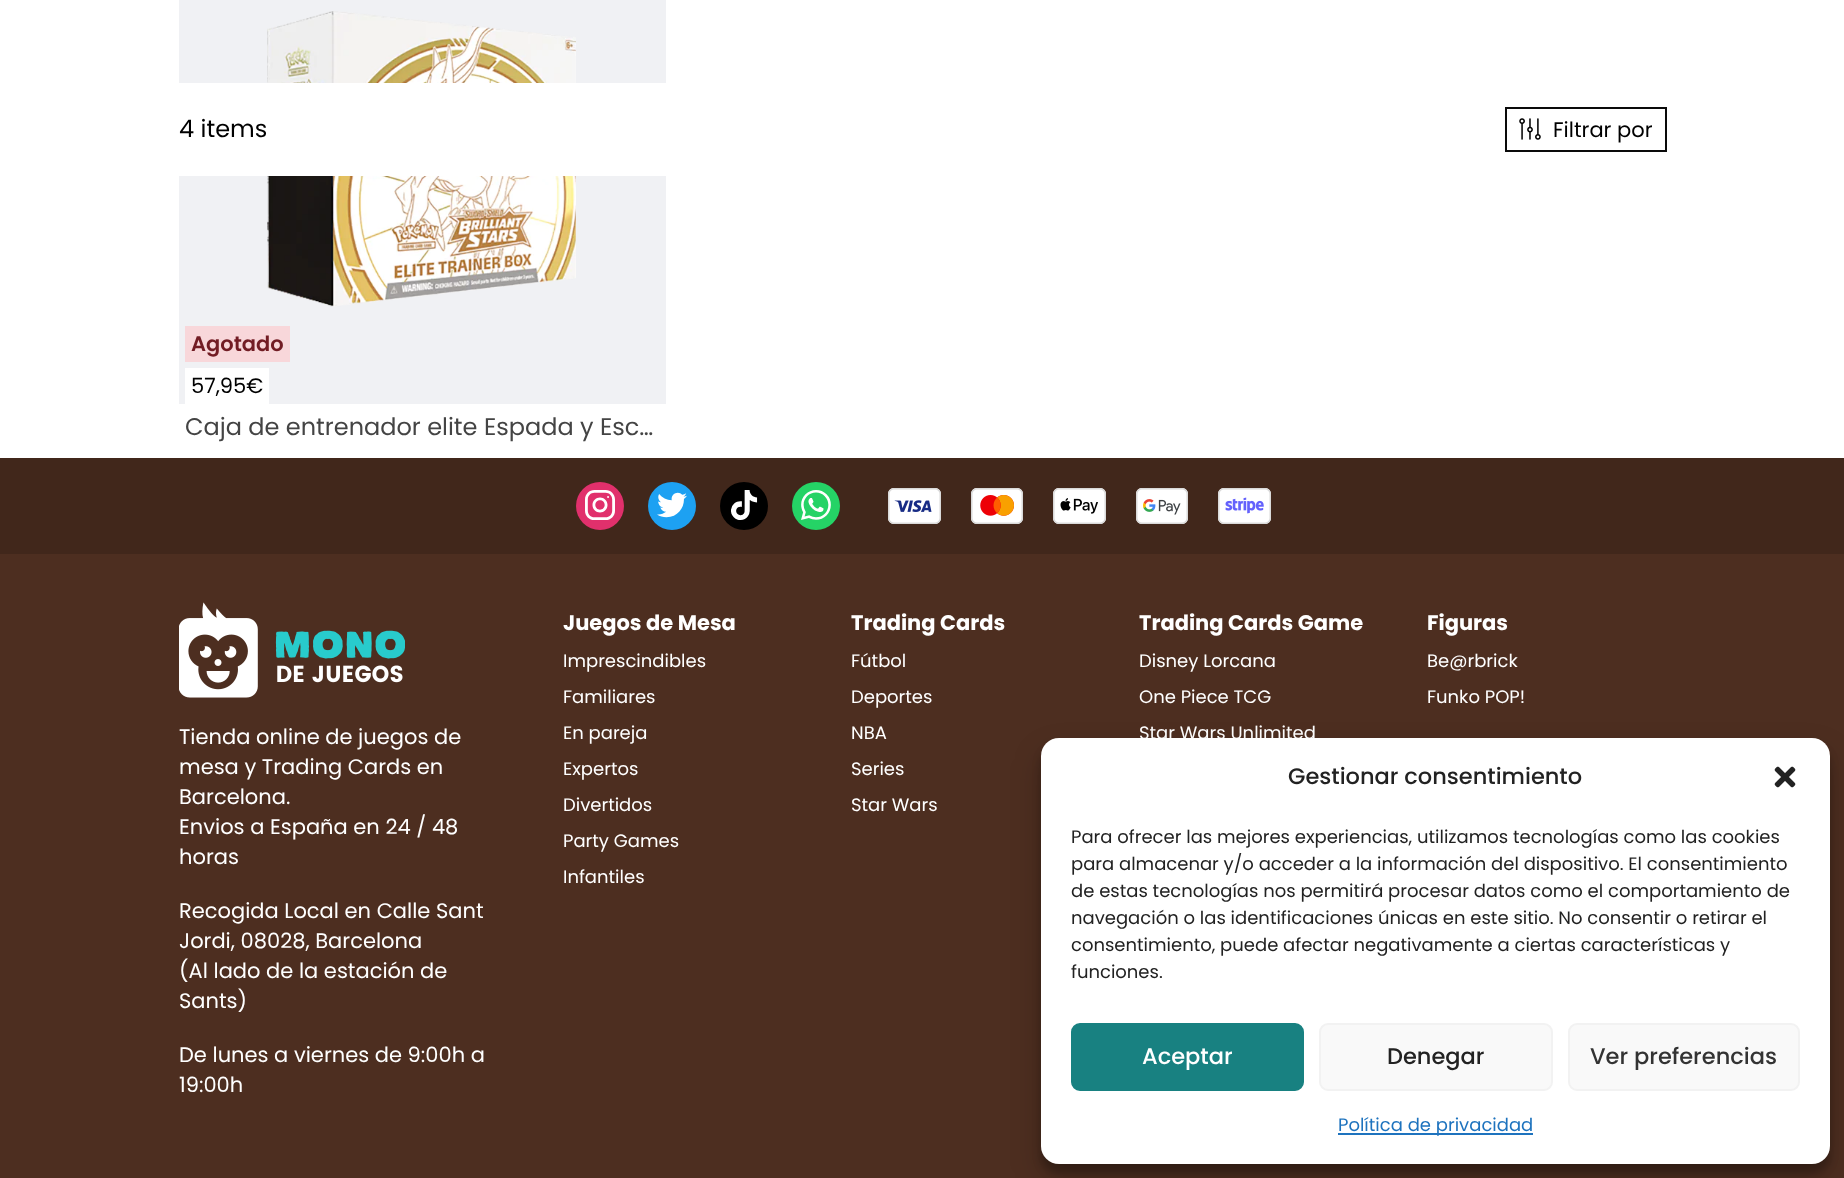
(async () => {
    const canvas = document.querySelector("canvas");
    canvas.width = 1844;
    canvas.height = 1178;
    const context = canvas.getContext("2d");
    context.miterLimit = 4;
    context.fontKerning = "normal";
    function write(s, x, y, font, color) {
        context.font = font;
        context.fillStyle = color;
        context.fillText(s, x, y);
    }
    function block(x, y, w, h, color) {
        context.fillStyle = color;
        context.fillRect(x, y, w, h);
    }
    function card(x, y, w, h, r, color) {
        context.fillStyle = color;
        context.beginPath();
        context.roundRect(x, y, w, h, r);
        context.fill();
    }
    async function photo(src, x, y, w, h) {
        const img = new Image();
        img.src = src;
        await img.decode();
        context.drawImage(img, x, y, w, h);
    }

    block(0, 0, 1844, 1178, "rgb(255, 255, 255)");
    block(179, 0, 487, 404, "rgb(240, 241, 244)");
    await photo("media/2.png", 267, 11, 309, 296);
    block(179, 83, 487, 93, "rgb(255, 255, 255)");
    write("4 items", 179, 137, "24px Poppins", "rgb(0, 0, 0)");
    await photo("media/1.png", 1519, 118, 22, 22);
    context.strokeStyle = "rgb(10, 10, 10)";
    context.lineWidth = 2;
    context.strokeRect(1506, 108, 160, 43);
    write("Filtrar por", 1553, 137, "21px Poppins", "rgb(0, 0, 0)");
    block(185, 326, 105, 36, "rgb(248, 215, 218)");
    write("Agotado", 191, 351, "600 21px Poppins", "rgb(114, 28, 36)");
    block(185, 368, 84, 36, "rgb(255, 255, 255)");
    write("57,95€", 191, 393, "21px Poppins", "rgb(0, 0, 0)");
    write("Caja de entrenador elite Espada y Esc…", 185, 435, "24px Poppins", "rgb(68, 68, 68)");
    block(0, 554, 1844, 624, "rgb(77, 46, 32)");
    block(0, 458, 1844, 96, "rgb(65, 39, 27)");
    context.fillStyle = "rgb(225, 48, 108)";
    context.beginPath();
    context.arc(600, 506, 24, 0, Math.PI * 2);
    context.fill();
    await photo("media/3.png", 585, 490, 30, 30);
    context.fillStyle = "rgb(29, 161, 242)";
    context.beginPath();
    context.arc(672, 506, 24, 0, Math.PI * 2);
    context.fill();
    await photo("media/4.png", 657, 492, 30, 26);
    context.fillStyle = "rgb(0, 0, 0)";
    context.beginPath();
    context.arc(744, 506, 24, 0, Math.PI * 2);
    context.fill();
    await photo("media/5.png", 731, 490, 27, 30);
    context.fillStyle = "rgb(37, 211, 102)";
    context.beginPath();
    context.arc(816, 506, 24, 0, Math.PI * 2);
    context.fill();
    await photo("media/6.png", 801, 490, 30, 30);
    await photo("media/7.png", 888, 488, 383, 36);
    await photo("media/8.png", 179, 602, 226, 96);
    write("Tienda online de juegos de", 179, 744, "21px Poppins", "rgb(255, 255, 255)");
    write("mesa y Trading Cards en", 179, 774, "21px Poppins", "rgb(255, 255, 255)");
    write("Barcelona.", 179, 804, "21px Poppins", "rgb(255, 255, 255)");
    write("Envios a España en 24 / 48", 179, 834, "21px Poppins", "rgb(255, 255, 255)");
    write("horas", 179, 864, "21px Poppins", "rgb(255, 255, 255)");
    write("Recogida Local en Calle Sant", 179, 918, "21px Poppins", "rgb(255, 255, 255)");
    write("Jordi, 08028, Barcelona", 179, 948, "21px Poppins", "rgb(255, 255, 255)");
    write("(Al lado de la estación de", 179, 978, "21px Poppins", "rgb(255, 255, 255)");
    write("Sants)", 179, 1008, "21px Poppins", "rgb(255, 255, 255)");
    write("De lunes a viernes de 9:00h a", 179, 1062, "21px Poppins", "rgb(255, 255, 255)");
    write("19:00h", 179, 1092, "21px Poppins", "rgb(255, 255, 255)");
    write("Juegos de Mesa", 563, 630, "bold 21px Poppins", "rgb(255, 255, 255)");
    write("Imprescindibles", 563, 667, "18px Poppins", "rgb(255, 255, 255)");
    write("Familiares", 563, 703, "18px Poppins", "rgb(255, 255, 255)");
    write("En pareja", 563, 739, "18px Poppins", "rgb(255, 255, 255)");
    write("Expertos", 563, 775, "18px Poppins", "rgb(255, 255, 255)");
    write("Divertidos", 563, 811, "18px Poppins", "rgb(255, 255, 255)");
    write("Party Games", 563, 847, "18px Poppins", "rgb(255, 255, 255)");
    write("Infantiles", 563, 883, "18px Poppins", "rgb(255, 255, 255)");
    write("Trading Cards", 851, 630, "bold 21px Poppins", "rgb(255, 255, 255)");
    write("Fútbol", 851, 667, "18px Poppins", "rgb(255, 255, 255)");
    write("Deportes", 851, 703, "18px Poppins", "rgb(255, 255, 255)");
    write("NBA", 851, 739, "18px Poppins", "rgb(255, 255, 255)");
    write("Series", 851, 775, "18px Poppins", "rgb(255, 255, 255)");
    write("Star Wars", 851, 811, "18px Poppins", "rgb(255, 255, 255)");
    write("Trading Cards Game", 1139, 630, "bold 21px Poppins", "rgb(255, 255, 255)");
    write("Disney Lorcana", 1139, 667, "18px Poppins", "rgb(255, 255, 255)");
    write("One Piece TCG", 1139, 703, "18px Poppins", "rgb(255, 255, 255)");
    write("Star Wars Unlimited", 1139, 739, "18px Poppins", "rgb(255, 255, 255)");
    write("Figuras", 1427, 630, "bold 21px Poppins", "rgb(255, 255, 255)");
    write("Be@rbrick", 1427, 667, "18px Poppins", "rgb(255, 255, 255)");
    write("Funko POP!", 1427, 703, "18px Poppins", "rgb(255, 255, 255)");
    context.fillStyle = "rgba(0, 0, 0, 0.23)";
    context.filter = "blur(4.5px)";
    context.beginPath();
    context.roundRect(1041, 747, 789, 426, 18);
    context.fill();
    context.filter = "none";
    context.fillStyle = "rgba(0, 0, 0, 0.19)";
    context.filter = "blur(15px)";
    context.beginPath();
    context.roundRect(1041, 753, 789, 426, 18);
    context.fill();
    context.filter = "none";
    card(1041, 738, 789, 426, 18, "rgb(255, 255, 255)");
    write("Gestionar consentimiento", 1288, 784, "500 22.5px Poppins", "rgb(34, 34, 34)");
    await photo("media/9.png", 1774, 766, 22, 22);
    write("Para ofrecer las mejores experiencias, utilizamos tecnologías como las cookies", 1071, 843, "18px Poppins", "rgb(34, 34, 34)");
    write("para almacenar y/o acceder a la información del dispositivo. El consentimiento", 1071, 870, "18px Poppins", "rgb(34, 34, 34)");
    write("de estas tecnologías nos permitirá procesar datos como el comportamiento de", 1071, 897, "18px Poppins", "rgb(34, 34, 34)");
    write("navegación o las identificaciones únicas en este sitio. No consentir o retirar el", 1071, 924, "18px Poppins", "rgb(34, 34, 34)");
    write("consentimiento, puede afectar negativamente a ciertas características y", 1071, 951, "18px Poppins", "rgb(34, 34, 34)");
    write("funciones.", 1071, 978, "18px Poppins", "rgb(34, 34, 34)");
    context.fillStyle = "rgb(24, 129, 129)";
    context.beginPath();
    context.roundRect(1072, 1024, 231, 66, 8);
    context.fill();
    context.strokeStyle = "rgb(24, 129, 129)";
    context.stroke();
    write("Aceptar", 1142, 1064, "500 22.5px Poppins", "rgb(255, 255, 255)");
    context.fillStyle = "rgb(249, 249, 249)";
    context.beginPath();
    context.roundRect(1320, 1024, 232, 66, 8);
    context.fill();
    context.strokeStyle = "rgb(242, 242, 242)";
    context.stroke();
    write("Denegar", 1387, 1064, "500 22.5px Poppins", "rgb(34, 34, 34)");
    context.fillStyle = "rgb(249, 249, 249)";
    context.beginPath();
    context.roundRect(1569, 1024, 230, 66, 8);
    context.fill();
    context.stroke();
    write("Ver preferencias", 1590, 1064, "500 22.5px Poppins", "rgb(51, 51, 51)");
    block(1338, 1133, 195, 2, "rgb(30, 115, 190)");
    write("Política de privacidad", 1338, 1131, "18px Poppins", "rgb(30, 115, 190)");
})();
